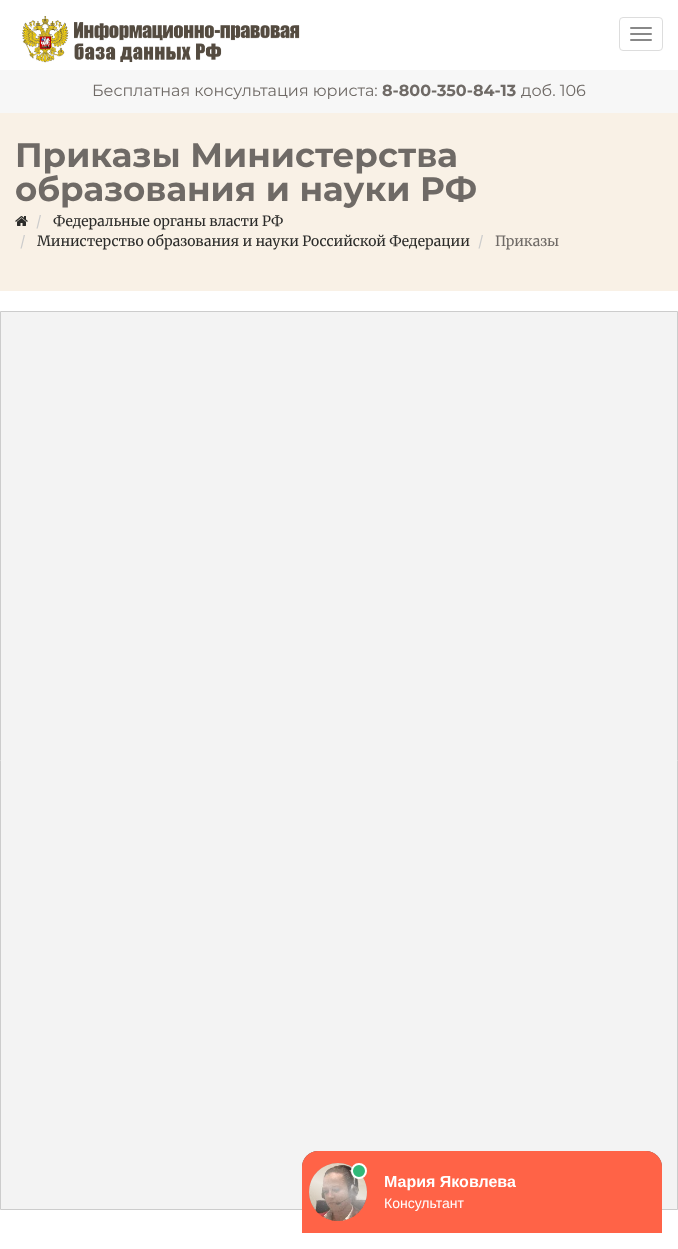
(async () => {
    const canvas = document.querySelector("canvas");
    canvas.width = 678;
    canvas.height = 1249;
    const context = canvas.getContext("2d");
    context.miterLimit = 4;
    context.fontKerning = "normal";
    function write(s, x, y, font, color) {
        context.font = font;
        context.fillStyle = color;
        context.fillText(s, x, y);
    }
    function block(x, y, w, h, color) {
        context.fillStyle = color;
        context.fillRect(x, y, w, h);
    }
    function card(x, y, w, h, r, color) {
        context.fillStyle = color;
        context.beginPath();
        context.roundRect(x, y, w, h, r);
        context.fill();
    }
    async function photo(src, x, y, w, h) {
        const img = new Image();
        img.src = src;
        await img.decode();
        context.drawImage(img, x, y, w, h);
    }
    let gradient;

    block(0, 0, 678, 1249, "rgb(255, 255, 255)");
    await photo("media/1.png", 22, 16, 278, 47);
    context.beginPath();
    context.roundRect(619.5, 17.5, 43, 33, 3.5);
    context.strokeStyle = "rgb(221, 221, 221)";
    context.stroke();
    card(630, 27, 22, 2, 1, "rgb(136, 136, 136)");
    card(630, 33, 22, 2, 1, "rgb(136, 136, 136)");
    card(630, 39, 22, 2, 1, "rgb(136, 136, 136)");
    block(0, 70, 678, 43, "rgb(247, 247, 247)");
    write("Бесплатная консультация юриста:", 92, 96, "16px Montserrat", "rgb(111, 106, 102)");
    write("8-800-350-84-13", 382, 96, "bold 16px Montserrat", "rgb(111, 106, 102)");
    write("доб. 106", 521, 96, "16px Montserrat", "rgb(111, 106, 102)");
    block(0, 113, 678, 178, "rgb(249, 241, 230)");
    write("Приказы Министерства", 15, 167, "bold 34px Montserrat", "rgb(111, 106, 102)");
    write("образования и науки РФ", 15, 201, "bold 34px Montserrat", "rgb(111, 106, 102)");
    await photo("media/2.png", 15, 216, 13, 10);
    write("/", 36, 226, "14px Merriweather", "rgb(204, 204, 204)");
    write("Федеральные органы власти РФ", 53, 226, "14px Merriweather", "rgb(44, 44, 42)");
    write("/", 20, 246, "14px Merriweather", "rgb(204, 204, 204)");
    write("Министерство образования и науки Российской Федерации", 37, 246, "14px Merriweather", "rgb(44, 44, 42)");
    write("/", 478, 246, "14px Merriweather", "rgb(204, 204, 204)");
    write("Приказы", 495, 246, "14px Merriweather", "rgb(111, 106, 102)");
    context.fillStyle = "rgb(243, 243, 243)";
    context.beginPath();
    context.rect(0.5, 311.5, 677, 898);
    context.fill();
    context.strokeStyle = "rgb(204, 204, 204)";
    context.stroke();
    context.fillStyle = "rgba(0, 0, 0, 0.6)";
    context.filter = "blur(0.5px)";
    context.beginPath();
    context.roundRect(302, 1151, 360, 82, 16);
    context.fill();
    context.filter = "none";
    context.fillStyle = "rgb(255, 99, 71)";
    context.beginPath();
    context.roundRect(302, 1151, 360, 82, [16, 16, 0, 0]);
    context.fill();
    context.fillStyle = "rgb(191, 74, 53)";
    context.beginPath();
    context.arc(338, 1192, 29, 0, Math.PI * 2);
    context.fill();
    await photo("media/3.png", 309, 1163, 58, 58);
    gradient = context.createLinearGradient(348, 1168, 328, 1223);
    gradient.addColorStop(0, "rgba(255, 255, 255, 0)");
    gradient.addColorStop(0.4, "rgba(255, 255, 255, 0.6)");
    gradient.addColorStop(0.6, "rgba(255, 255, 255, 0.36)");
    gradient.addColorStop(1, "rgba(255, 255, 255, 0)");
    context.fillStyle = gradient;
    context.beginPath();
    context.moveTo(335, 1163);
    context.lineTo(359, 1172);
    context.bezierCurveTo(364, 1177, 367, 1184, 367, 1192);
    context.bezierCurveTo(367, 1208, 354, 1221, 338, 1221);
    context.bezierCurveTo(322, 1221, 309, 1208, 309, 1192);
    context.bezierCurveTo(309, 1177, 320, 1165, 335, 1163);
    context.closePath();
    context.fill();
    context.fillStyle = "rgb(49, 185, 120)";
    context.beginPath();
    context.arc(359, 1171, 7, 0, Math.PI * 2);
    context.fill();
    context.strokeStyle = "rgb(255, 255, 255)";
    context.lineWidth = 2;
    context.stroke();
    write("Мария Яковлева", 384, 1187, "bold 16px Liberation Sans", "rgb(255, 255, 255)");
    write("Консультант", 384, 1208, "14px Liberation Sans", "rgb(255, 255, 255)");
})();
